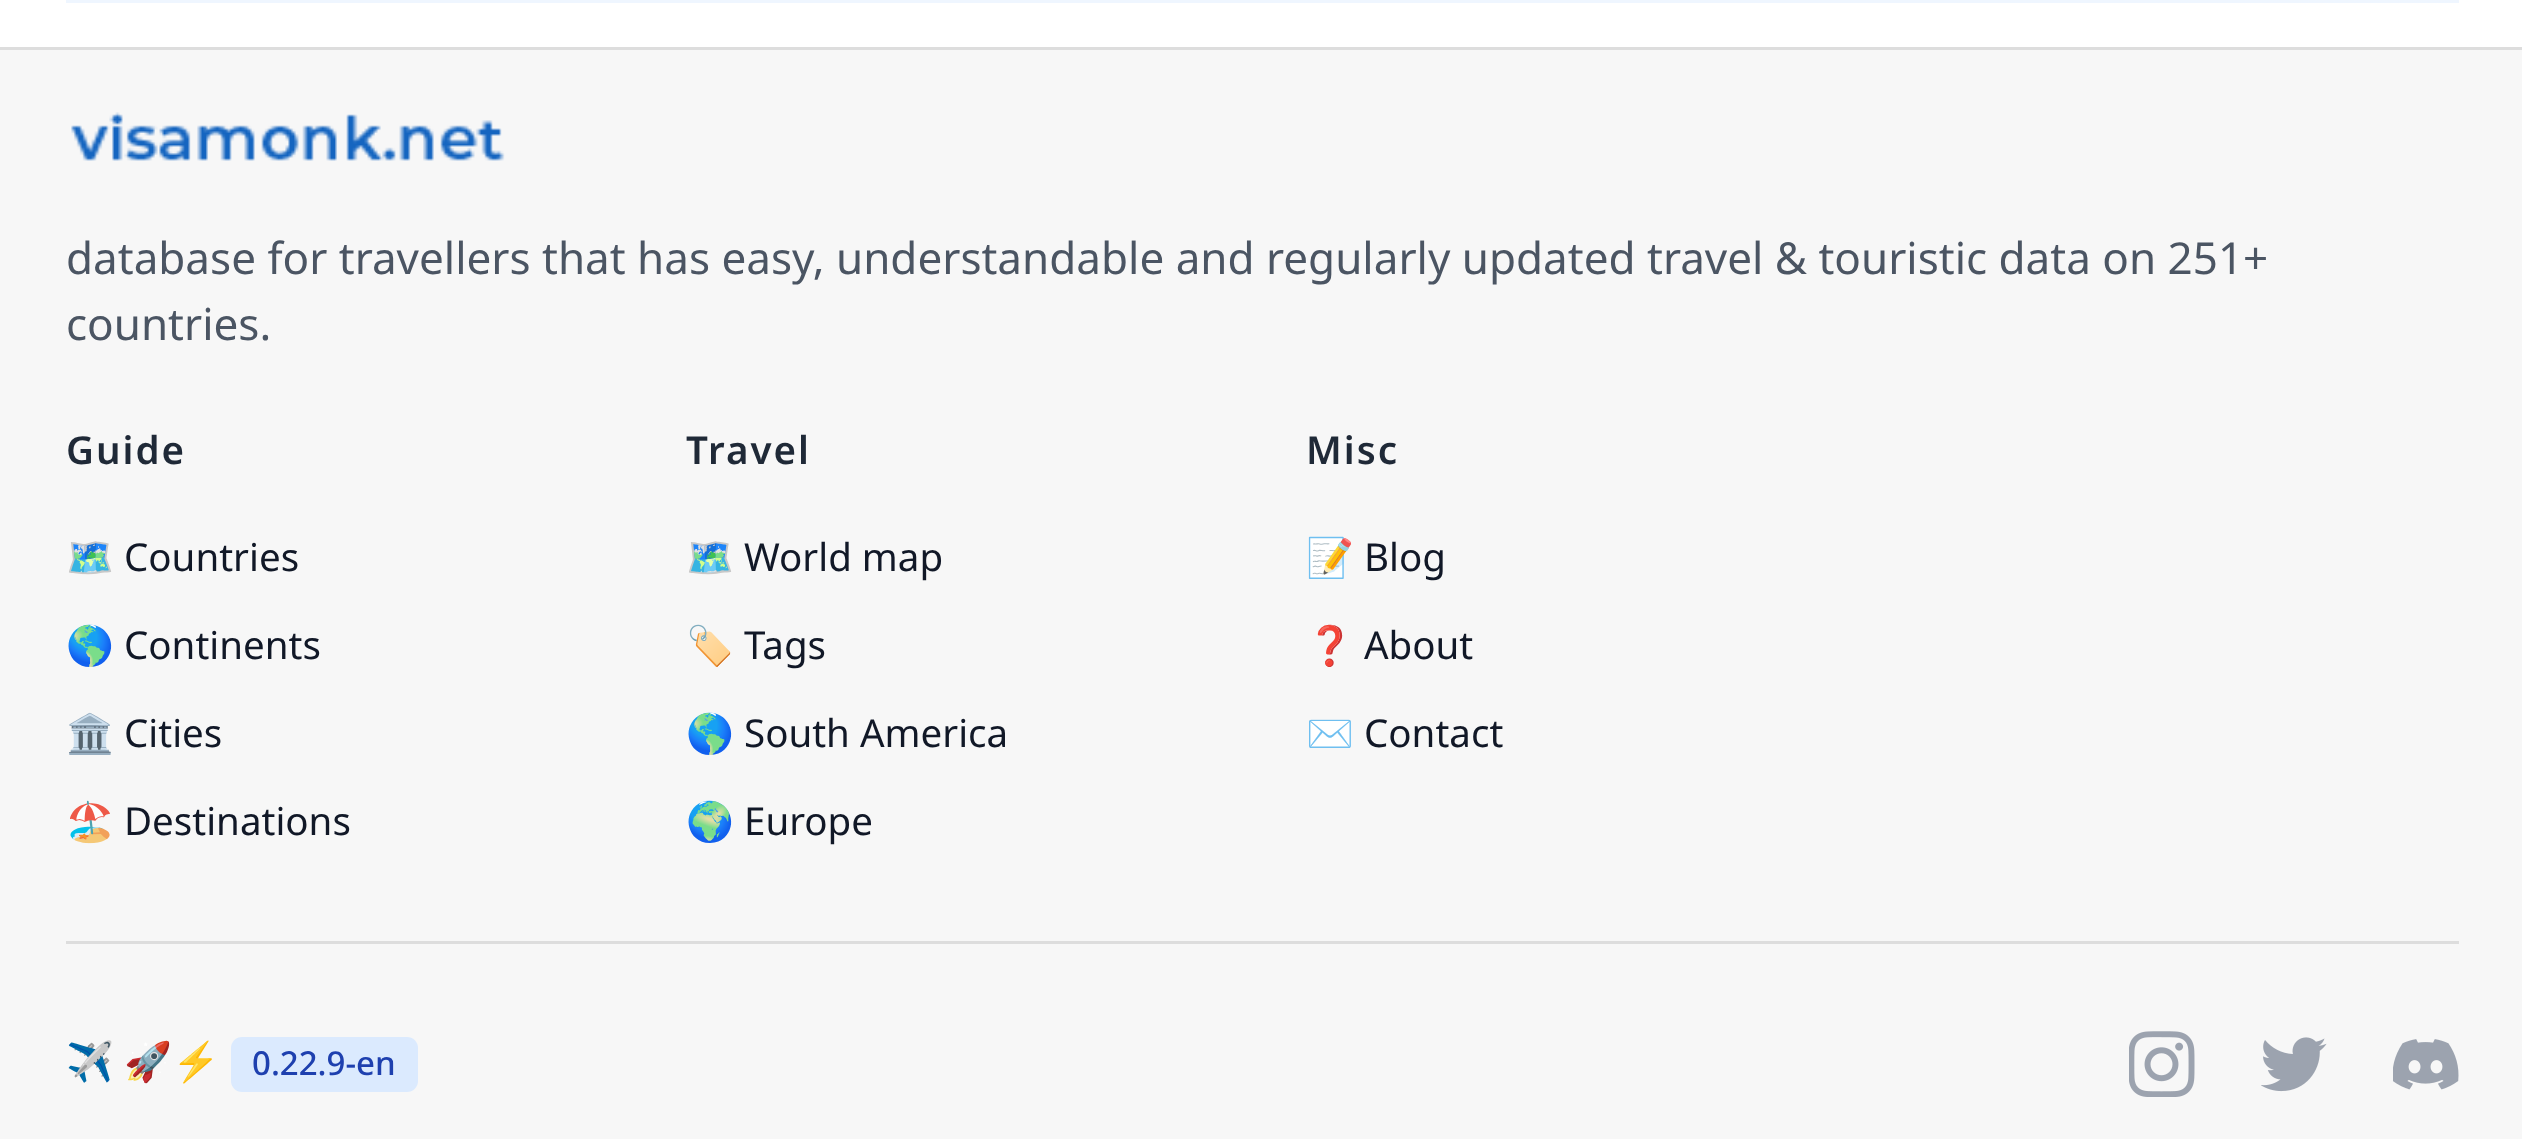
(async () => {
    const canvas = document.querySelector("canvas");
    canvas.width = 2522;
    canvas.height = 1139;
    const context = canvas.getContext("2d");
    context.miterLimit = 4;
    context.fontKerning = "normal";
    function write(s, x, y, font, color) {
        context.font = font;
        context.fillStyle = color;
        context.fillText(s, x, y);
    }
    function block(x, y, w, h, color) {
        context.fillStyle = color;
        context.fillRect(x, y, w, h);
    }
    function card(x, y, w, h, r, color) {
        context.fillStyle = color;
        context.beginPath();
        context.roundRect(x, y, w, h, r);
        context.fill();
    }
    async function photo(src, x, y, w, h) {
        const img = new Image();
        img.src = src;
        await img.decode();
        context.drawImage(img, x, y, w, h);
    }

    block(0, 0, 2522, 1139, "rgb(255, 255, 255)");
    block(66, 0, 2393, 3, "rgb(239, 246, 255)");
    block(0, 50, 2522, 1089, "rgb(247, 247, 247)");
    block(0, 47, 2522, 3, "rgb(221, 221, 221)");
    await photo("media/1.png", 71, 112, 434, 49);
    write("database for travellers that has easy, understandable and regularly updated travel & touristic data on 251+", 66, 274, "44px Noto Sans", "rgb(75, 85, 99)");
    write("countries.", 66, 340, "44px Noto Sans", "rgb(75, 85, 99)");
    context.letterSpacing = "2px";
    write("Guide", 66, 464, "600 38.5px Noto Sans", "rgb(31, 41, 55)");
    context.letterSpacing = "0px";
    write("🗺️", 66, 571, "38.5px Noto Color Emoji", "rgb(17, 24, 39)");
    write("Countries", 124, 571, "38.5px Noto Sans", "rgb(17, 24, 39)");
    write("🌎", 66, 659, "38.5px Noto Color Emoji", "rgb(17, 24, 39)");
    write("Continents", 124, 659, "38.5px Noto Sans", "rgb(17, 24, 39)");
    write("🏛️", 66, 747, "38.5px Noto Color Emoji", "rgb(17, 24, 39)");
    write("Cities", 124, 747, "38.5px Noto Sans", "rgb(17, 24, 39)");
    write("🏖️", 66, 835, "38.5px Noto Color Emoji", "rgb(17, 24, 39)");
    write("Destinations", 124, 835, "38.5px Noto Sans", "rgb(17, 24, 39)");
    context.letterSpacing = "2px";
    write("Travel", 686, 464, "600 38.5px Noto Sans", "rgb(31, 41, 55)");
    context.letterSpacing = "0px";
    write("🗺️", 686, 571, "38.5px Noto Color Emoji", "rgb(17, 24, 39)");
    write("World map", 744, 571, "38.5px Noto Sans", "rgb(17, 24, 39)");
    write("🏷️", 686, 659, "38.5px Noto Color Emoji", "rgb(17, 24, 39)");
    write("Tags", 744, 659, "38.5px Noto Sans", "rgb(17, 24, 39)");
    write("🌎", 686, 747, "38.5px Noto Color Emoji", "rgb(17, 24, 39)");
    write("South America", 744, 747, "38.5px Noto Sans", "rgb(17, 24, 39)");
    write("🌍", 686, 835, "38.5px Noto Color Emoji", "rgb(17, 24, 39)");
    write("Europe", 744, 835, "38.5px Noto Sans", "rgb(17, 24, 39)");
    context.letterSpacing = "2px";
    write("Misc", 1306, 464, "600 38.5px Noto Sans", "rgb(31, 41, 55)");
    context.letterSpacing = "0px";
    write("📝", 1306, 571, "38.5px Noto Color Emoji", "rgb(17, 24, 39)");
    write("Blog", 1364, 571, "38.5px Noto Sans", "rgb(17, 24, 39)");
    write("❓", 1306, 659, "38.5px Noto Color Emoji", "rgb(17, 24, 39)");
    write("About", 1364, 659, "38.5px Noto Sans", "rgb(17, 24, 39)");
    write("✉️", 1306, 747, "38.5px Noto Color Emoji", "rgb(17, 24, 39)");
    write("Contact", 1364, 747, "38.5px Noto Sans", "rgb(17, 24, 39)");
    block(66, 941, 2393, 3, "rgb(221, 221, 221)");
    write("✈️", 66, 1075, "38.5px Noto Color Emoji", "rgb(156, 163, 175)");
    write("🚀⚡", 124, 1075, "38.5px Noto Color Emoji", "rgb(156, 163, 175)");
    card(231, 1037, 187, 55, 11, "rgb(219, 234, 254)");
    write("0.22.9-en", 252, 1075, "500 33px Noto Sans", "rgb(30, 64, 175)");
    await photo("media/2.png", 2129, 1031, 66, 66);
    await photo("media/3.png", 2261, 1037, 66, 55);
    await photo("media/4.png", 2393, 1039, 66, 51);
})();
